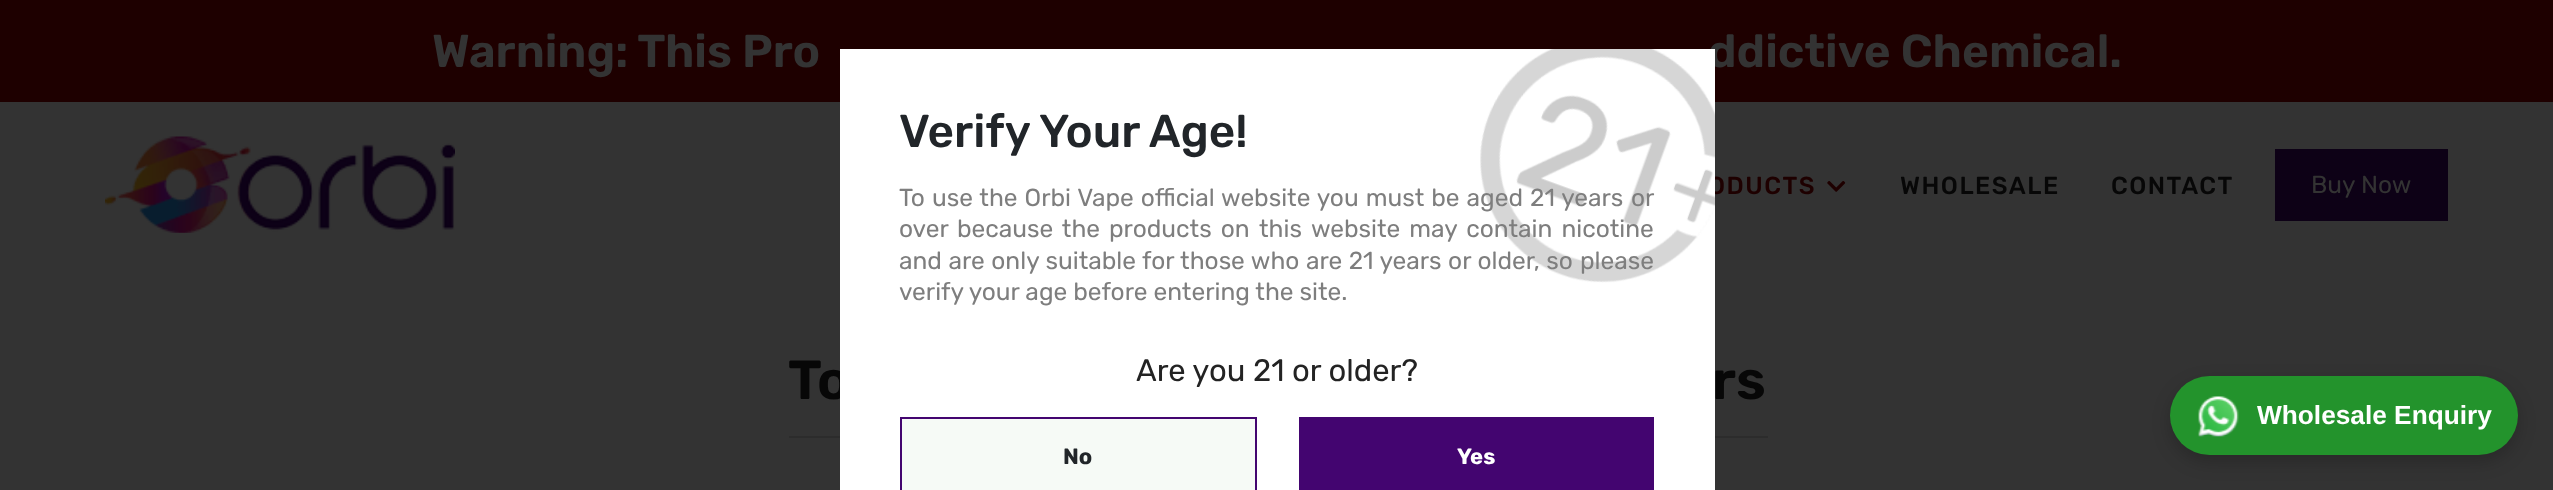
(async () => {
    const canvas = document.querySelector("canvas");
    canvas.width = 2553;
    canvas.height = 490;
    const context = canvas.getContext("2d");
    context.miterLimit = 4;
    context.fontKerning = "normal";
    function write(s, x, y, font, color) {
        context.font = font;
        context.fillStyle = color;
        context.fillText(s, x, y);
    }
    function block(x, y, w, h, color) {
        context.fillStyle = color;
        context.fillRect(x, y, w, h);
    }
    function card(x, y, w, h, r, color) {
        context.fillStyle = color;
        context.beginPath();
        context.roundRect(x, y, w, h, r);
        context.fill();
    }
    async function photo(src, x, y, w, h) {
        const img = new Image();
        img.src = src;
        await img.decode();
        context.drawImage(img, x, y, w, h);
    }

    block(0, 0, 2553, 490, "rgb(51, 51, 51)");
    block(0, 0, 2553, 102, "rgb(30, 0, 0)");
    write("Warning: This Pro", 432, 67, "600 46px Rubik", "rgb(51, 51, 51)");
    write("ddictive Chemical.", 1708, 67, "600 46px Rubik", "rgb(51, 51, 51)");
    context.letterSpacing = "1.5px";
    write("ODUCTS", 1708, 194, "500 24.5px Rubik", "rgb(30, 0, 0)");
    context.letterSpacing = "0px";
    write("To", 788, 399, "600 55px Rubik", "rgb(7, 7, 7)");
    block(789, 436, 979, 2, "rgb(44, 44, 44)");
    block(840, 49, 875, 441, "rgb(255, 255, 255)");
    await photo("media/1.png", 1480, 49, 235, 234);
    write("Verify Your Age!", 899, 147, "500 46px Rubik", "rgb(33, 37, 41)");
    context.wordSpacing = "1px";
    write("To use the Orbi Vape official website you must be aged 21 years", 899, 206, "24.5px Rubik", "rgb(126, 126, 126)");
    context.wordSpacing = "0px";
    write("or", 1631, 206, "24.5px Rubik", "rgb(126, 126, 126)");
    write("over", 899, 237, "24.5px Rubik", "rgb(126, 126, 126)");
    context.wordSpacing = "3px";
    write("because the products on", 957, 237, "24.5px Rubik", "rgb(126, 126, 126)");
    context.wordSpacing = "0px";
    write("this", 1259, 237, "24.5px Rubik", "rgb(126, 126, 126)");
    context.wordSpacing = "3px";
    write("website may contain nicotine", 1311, 237, "24.5px Rubik", "rgb(126, 126, 126)");
    context.wordSpacing = "0.5px";
    write("and are only suitable for those who are 21 years or older, so", 899, 269, "24.5px Rubik", "rgb(126, 126, 126)");
    context.wordSpacing = "0px";
    write("please", 1580, 269, "24.5px Rubik", "rgb(126, 126, 126)");
    write("verify your age before entering the site.", 899, 300, "24.5px Rubik", "rgb(126, 126, 126)");
    write("Are you 21 or older?", 1136, 381, "31px Rubik", "rgb(35, 35, 35)");
    context.fillStyle = "rgb(246, 250, 246)";
    context.beginPath();
    context.rect(901, 418, 355, 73);
    context.fill();
    context.strokeStyle = "rgb(67, 5, 112)";
    context.lineWidth = 2;
    context.stroke();
    write("No", 1063, 464, "bold 22px Rubik", "rgb(33, 37, 41)");
    block(1299, 417, 355, 73, "rgb(67, 5, 112)");
    write("Yes", 1457, 464, "bold 22px Rubik", "rgb(255, 255, 255)");
    await photo("media/2.png", 105, 136, 350, 97);
    await photo("media/3.png", 1827, 181, 19, 11);
    context.letterSpacing = "1.5px";
    write("WHOLESALE", 1900, 194, "500 24.5px Rubik", "rgb(7, 7, 7)");
    write("CONTACT", 2111, 194, "500 24.5px Rubik", "rgb(7, 7, 7)");
    block(2275, 149, 173, 72, "rgb(13, 1, 22)");
    context.letterSpacing = "0px";
    write("Buy Now", 2311, 193, "24.5px Rubik", "rgb(51, 51, 51)");
    write("rs", 1712, 399, "600 55px Rubik", "rgb(7, 7, 7)");
    context.fillStyle = "rgba(0, 0, 0, 0.2)";
    context.filter = "blur(9px)";
    context.beginPath();
    context.roundRect(2170, 383, 348, 79, 39.5);
    context.fill();
    context.filter = "none";
    card(2170, 376, 348, 79, 39.5, "rgb(35, 147, 44)");
    await photo("media/4.png", 2198, 396, 41, 41);
    write("Wholesale Enquiry", 2257, 424, "bold 26.25px Liberation Sans", "rgb(255, 255, 255)");
})();
